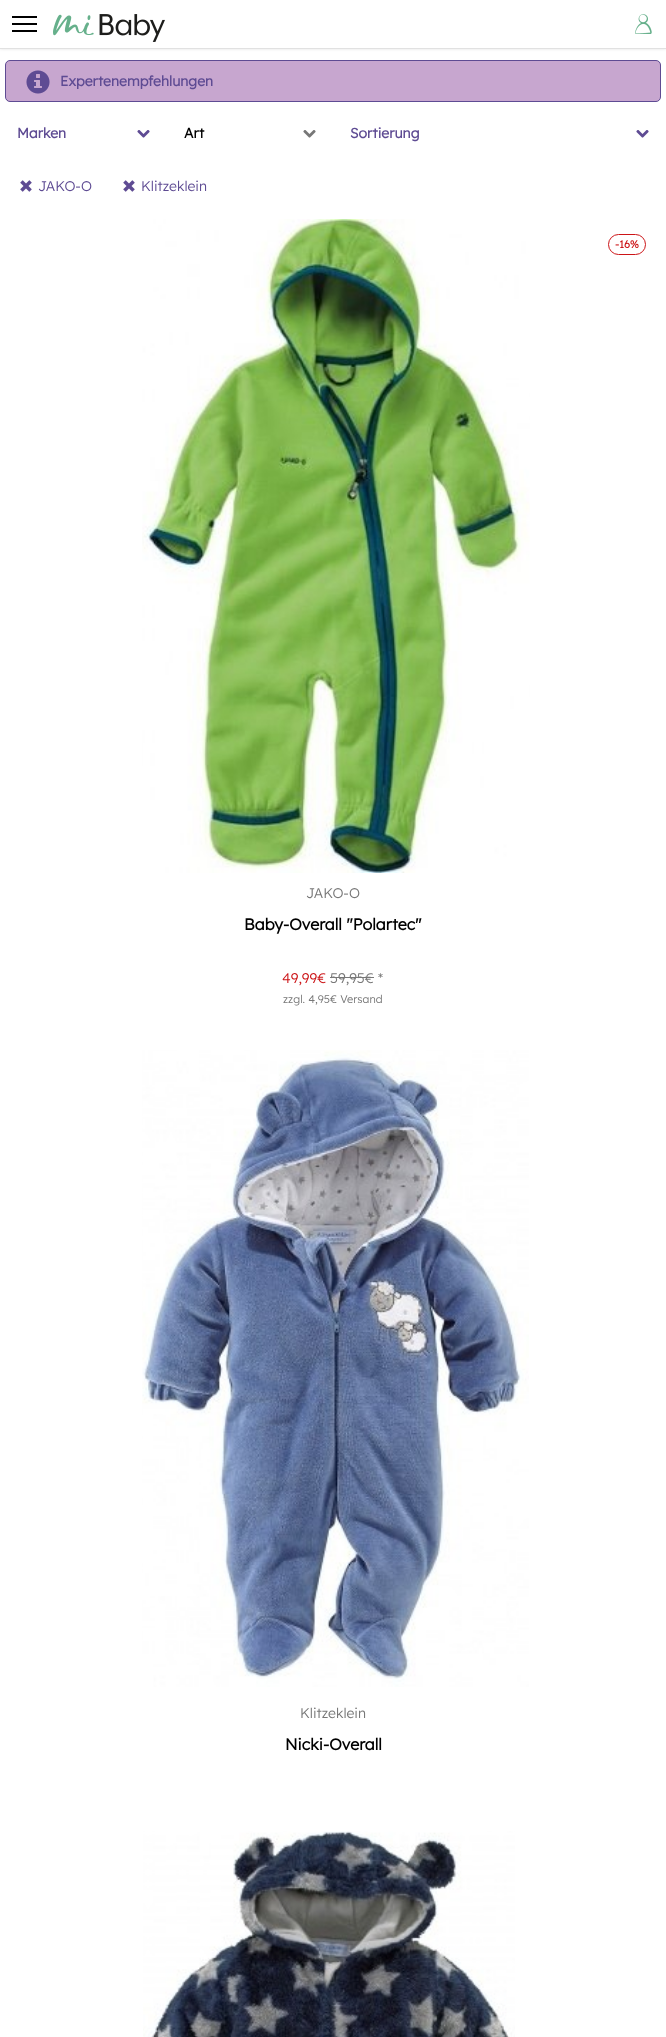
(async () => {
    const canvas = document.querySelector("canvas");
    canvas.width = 666;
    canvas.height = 2037;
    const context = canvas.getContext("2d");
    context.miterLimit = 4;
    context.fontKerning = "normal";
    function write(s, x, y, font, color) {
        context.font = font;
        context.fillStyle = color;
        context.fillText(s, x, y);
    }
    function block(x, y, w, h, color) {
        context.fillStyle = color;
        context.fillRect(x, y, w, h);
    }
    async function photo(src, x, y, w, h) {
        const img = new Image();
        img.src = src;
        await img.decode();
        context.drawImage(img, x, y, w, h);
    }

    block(0, 0, 666, 2037, "rgb(255, 255, 255)");
    context.save();
    context.beginPath();
    context.rect(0, 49, 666, 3);
    context.clip();
    context.fillStyle = "rgb(225, 225, 225)";
    context.filter = "blur(1.5px)";
    context.beginPath();
    context.rect(0, 0, 666, 49);
    context.fill();
    context.filter = "none";
    context.restore();
    block(0, 48, 666, 1, "rgb(225, 225, 225)");
    block(12, 16, 25, 2, "rgb(0, 0, 0)");
    block(12, 23, 25, 2, "rgb(0, 0, 0)");
    block(12, 30, 25, 2, "rgb(0, 0, 0)");
    await photo("media/1.png", 53, 14, 112, 28);
    await photo("media/2.png", 635, 14, 17, 20);
    context.fillStyle = "rgb(199, 166, 207)";
    context.beginPath();
    context.roundRect(5.5, 60.5, 655, 41, 4.5);
    context.fill();
    context.strokeStyle = "rgb(94, 75, 147)";
    context.stroke();
    await photo("media/3.png", 26, 70, 24, 24);
    write("Expertenempfehlungen", 60, 86, "bold 14px Lexend", "rgb(94, 75, 147)");
    write("Marken", 17, 138, "bold 14px Lexend", "rgb(94, 75, 147)");
    await photo("media/4.png", 137, 130, 13, 8);
    write("Art", 184, 138, "bold 14px Lexend", "rgb(0, 0, 0)");
    await photo("media/5.png", 303, 130, 13, 8);
    write("Sortierung", 350, 138, "bold 14px Lexend", "rgb(94, 75, 147)");
    await photo("media/4.png", 636, 130, 13, 8);
    await photo("media/6.png", 20, 180, 12, 12);
    write("JAKO-O", 38, 191, "300 14px Lexend", "rgb(94, 75, 147)");
    await photo("media/6.png", 123, 180, 12, 12);
    write("Klitzeklein", 141, 191, "300 14px Lexend", "rgb(94, 75, 147)");
    await photo("media/7.png", 142, 219, 388, 654);
    context.beginPath();
    context.roundRect(608.5, 234.5, 37, 20, 10);
    context.strokeStyle = "rgb(204, 20, 23)";
    context.stroke();
    write("-16%", 615, 248, "bold 10.5px Lexend", "rgb(204, 20, 23)");
    write("JAKO-O", 306, 898, "300 14px Lexend", "rgb(119, 119, 119)");
    write("Baby-Overall \"Polartec\"", 244, 930, "bold 16px Lexend", "rgb(0, 0, 0)");
    write("49,99€", 282, 983, "300 14px Lexend", "rgb(204, 20, 23)");
    write("59,95€ *", 330, 983, "300 14px Lexend", "rgb(119, 119, 119)");
    block(330, 977, 44, 1, "rgb(119, 119, 119)");
    write("zzgl. 4,95€ Versand", 283, 1003, "300 11px Lexend", "rgb(119, 119, 119)");
    await photo("media/8.png", 142, 1050, 387, 637);
    write("Klitzeklein", 300, 1718, "300 14px Lexend", "rgb(119, 119, 119)");
    write("Nicki-Overall", 285, 1750, "bold 16px Lexend", "rgb(0, 0, 0)");
    await photo("media/9.png", 143, 1831, 372, 206);
})();
